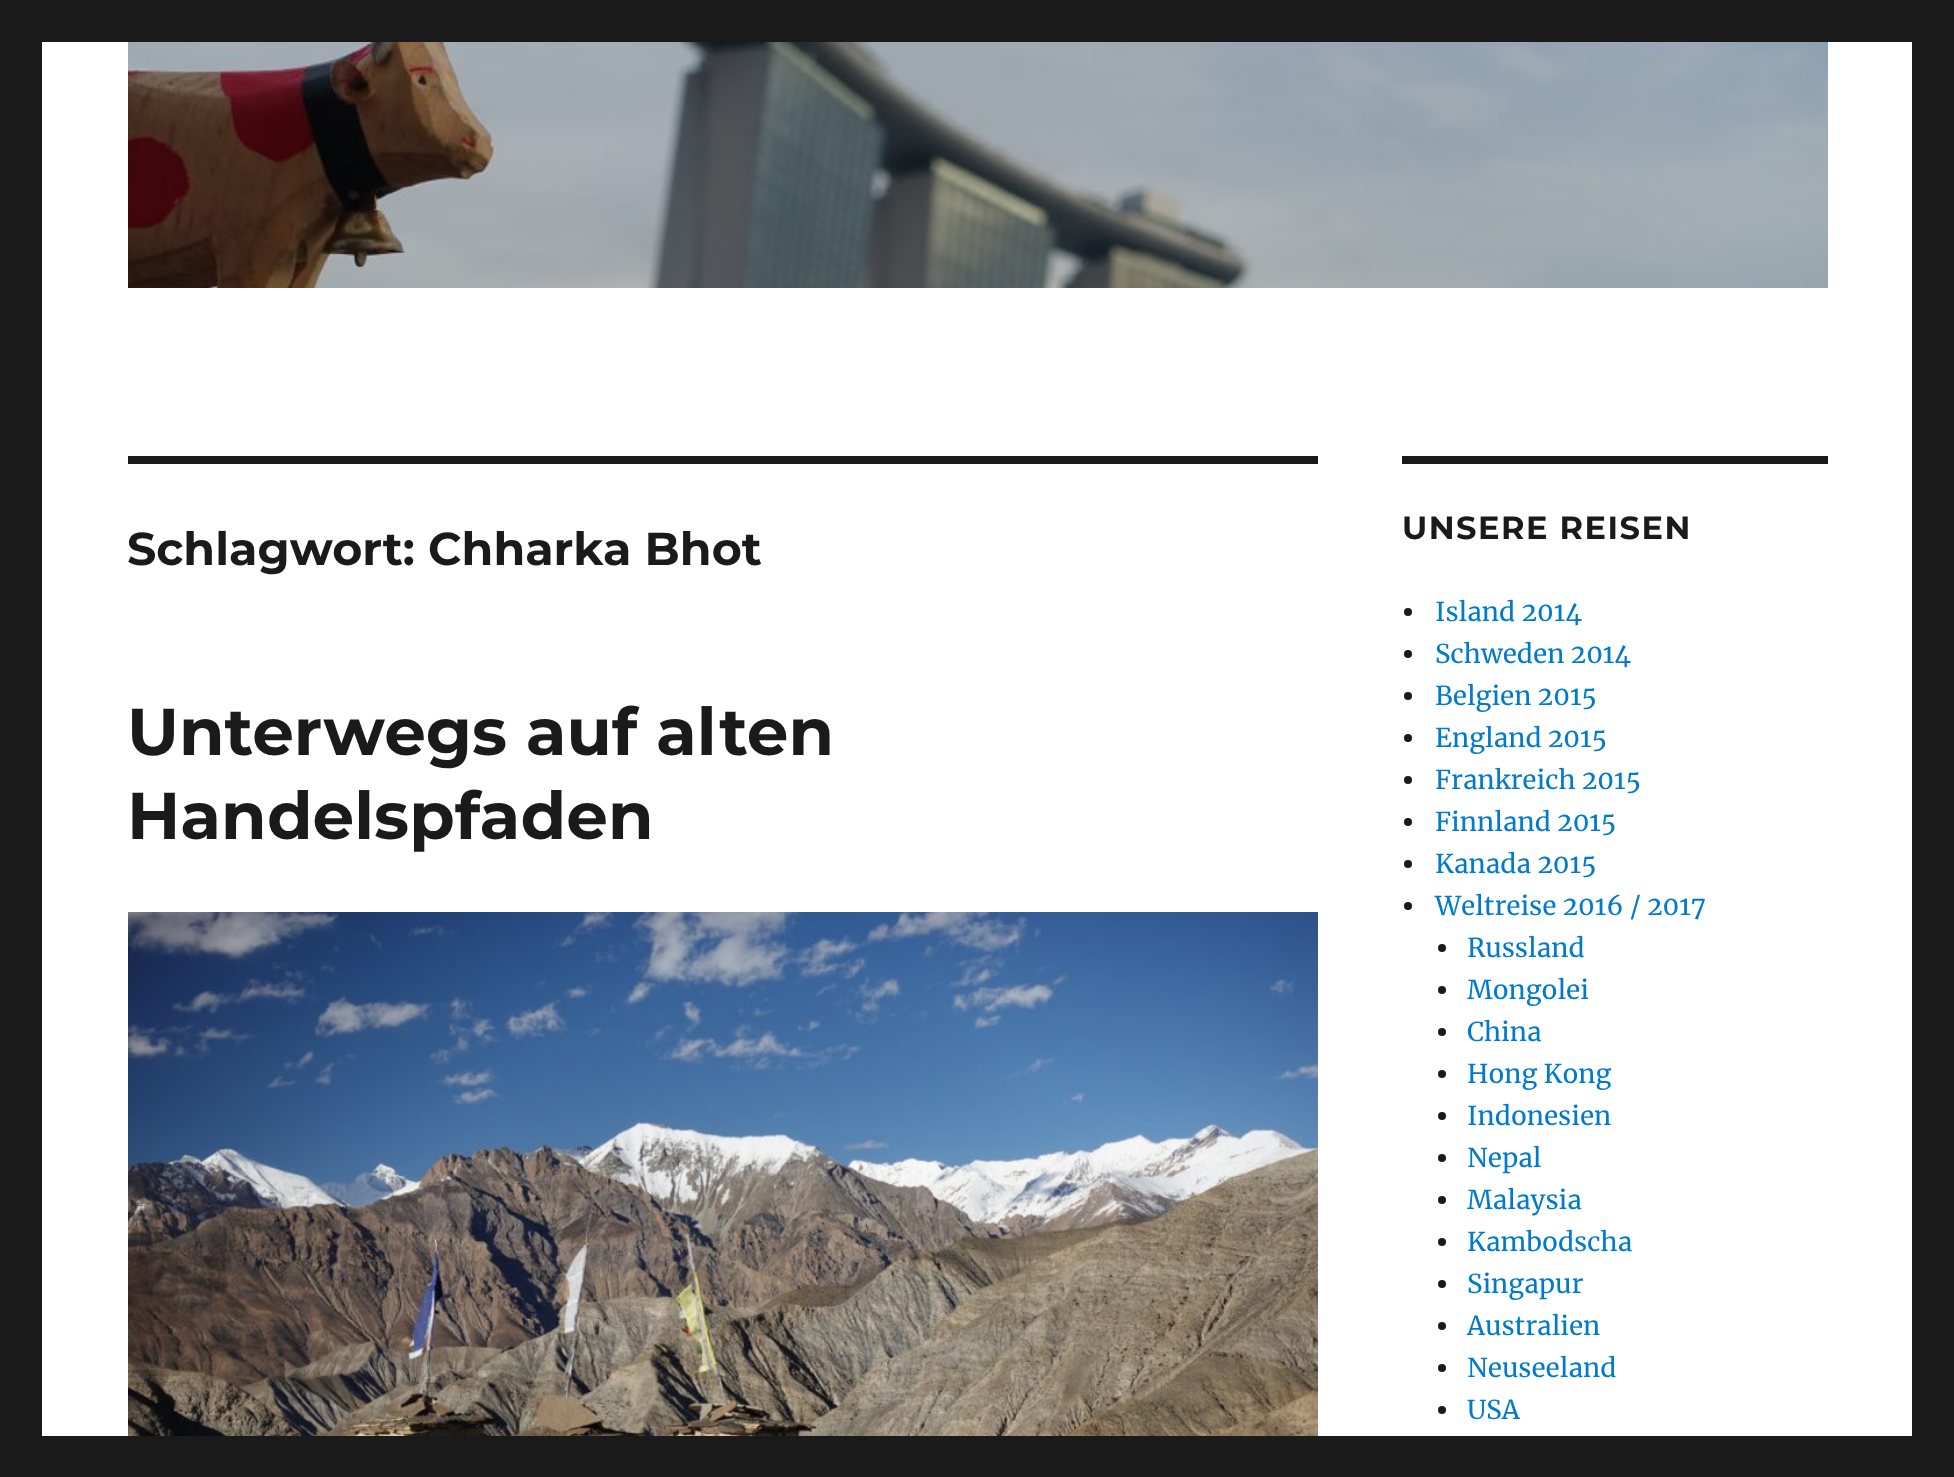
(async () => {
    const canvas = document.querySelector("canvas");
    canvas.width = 1954;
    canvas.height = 1477;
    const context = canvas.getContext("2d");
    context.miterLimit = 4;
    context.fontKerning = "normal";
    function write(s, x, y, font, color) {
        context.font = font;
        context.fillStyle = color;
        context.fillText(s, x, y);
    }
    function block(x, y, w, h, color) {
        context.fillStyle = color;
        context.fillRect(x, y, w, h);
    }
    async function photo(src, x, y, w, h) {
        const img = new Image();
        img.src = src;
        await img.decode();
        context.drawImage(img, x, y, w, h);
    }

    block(0, 0, 1954, 1477, "rgb(26, 26, 26)");
    block(42, 42, 1870, 1394, "rgb(255, 255, 255)");
    await photo("media/1.png", 128, 42, 1700, 246);
    block(128, 456, 1190, 8, "rgb(26, 26, 26)");
    write("Schlagwort: Chharka Bhot", 127, 565, "100 46px Montserrat", "rgb(26, 26, 26)");
    write("Unterwegs auf alten", 127, 755, "100 66px Montserrat", "rgb(26, 26, 26)");
    write("Handelspfaden", 127, 839, "100 66px Montserrat", "rgb(26, 26, 26)");
    await photo("media/2.png", 128, 912, 1190, 524);
    block(1402, 456, 426, 8, "rgb(26, 26, 26)");
    context.letterSpacing = "1.5px";
    write("UNSERE REISEN", 1402, 539, "100 32px Montserrat", "rgb(26, 26, 26)");
    context.beginPath();
    context.arc(1408, 612, 4, 0, Math.PI * 2);
    context.fill();
    context.letterSpacing = "0px";
    write("Island 2014", 1435, 621, "26px Merriweather", "rgb(0, 122, 204)");
    context.fillStyle = "rgb(26, 26, 26)";
    context.beginPath();
    context.arc(1408, 654, 4, 0, Math.PI * 2);
    context.fill();
    write("Schweden 2014", 1435, 663, "26px Merriweather", "rgb(0, 122, 204)");
    context.fillStyle = "rgb(26, 26, 26)";
    context.beginPath();
    context.arc(1408, 696, 4, 0, Math.PI * 2);
    context.fill();
    write("Belgien 2015", 1435, 705, "26px Merriweather", "rgb(0, 122, 204)");
    context.fillStyle = "rgb(26, 26, 26)";
    context.beginPath();
    context.arc(1408, 738, 4, 0, Math.PI * 2);
    context.fill();
    write("England 2015", 1435, 747, "26px Merriweather", "rgb(0, 122, 204)");
    context.fillStyle = "rgb(26, 26, 26)";
    context.beginPath();
    context.arc(1408, 780, 4, 0, Math.PI * 2);
    context.fill();
    write("Frankreich 2015", 1435, 789, "26px Merriweather", "rgb(0, 122, 204)");
    context.fillStyle = "rgb(26, 26, 26)";
    context.beginPath();
    context.arc(1408, 822, 4, 0, Math.PI * 2);
    context.fill();
    write("Finnland 2015", 1435, 831, "26px Merriweather", "rgb(0, 122, 204)");
    context.fillStyle = "rgb(26, 26, 26)";
    context.beginPath();
    context.arc(1408, 864, 4, 0, Math.PI * 2);
    context.fill();
    write("Kanada 2015", 1435, 873, "26px Merriweather", "rgb(0, 122, 204)");
    context.fillStyle = "rgb(26, 26, 26)";
    context.beginPath();
    context.arc(1408, 906, 4, 0, Math.PI * 2);
    context.fill();
    write("Weltreise 2016 / 2017", 1435, 915, "26px Merriweather", "rgb(0, 122, 204)");
    context.fillStyle = "rgb(26, 26, 26)";
    context.beginPath();
    context.arc(1442, 948, 4, 0, Math.PI * 2);
    context.fill();
    write("Russland", 1467, 957, "26px Merriweather", "rgb(0, 122, 204)");
    context.fillStyle = "rgb(26, 26, 26)";
    context.beginPath();
    context.arc(1442, 990, 4, 0, Math.PI * 2);
    context.fill();
    write("Mongolei", 1467, 999, "26px Merriweather", "rgb(0, 122, 204)");
    context.fillStyle = "rgb(26, 26, 26)";
    context.beginPath();
    context.arc(1442, 1032, 4, 0, Math.PI * 2);
    context.fill();
    write("China", 1467, 1041, "26px Merriweather", "rgb(0, 122, 204)");
    context.fillStyle = "rgb(26, 26, 26)";
    context.beginPath();
    context.arc(1442, 1074, 4, 0, Math.PI * 2);
    context.fill();
    write("Hong Kong", 1467, 1083, "26px Merriweather", "rgb(0, 122, 204)");
    context.fillStyle = "rgb(26, 26, 26)";
    context.beginPath();
    context.arc(1442, 1116, 4, 0, Math.PI * 2);
    context.fill();
    write("Indonesien", 1467, 1125, "26px Merriweather", "rgb(0, 122, 204)");
    context.fillStyle = "rgb(26, 26, 26)";
    context.beginPath();
    context.arc(1442, 1158, 4, 0, Math.PI * 2);
    context.fill();
    write("Nepal", 1467, 1167, "26px Merriweather", "rgb(0, 122, 204)");
    context.fillStyle = "rgb(26, 26, 26)";
    context.beginPath();
    context.arc(1442, 1200, 4, 0, Math.PI * 2);
    context.fill();
    write("Malaysia", 1467, 1209, "26px Merriweather", "rgb(0, 122, 204)");
    context.fillStyle = "rgb(26, 26, 26)";
    context.beginPath();
    context.arc(1442, 1242, 4, 0, Math.PI * 2);
    context.fill();
    write("Kambodscha", 1467, 1251, "26px Merriweather", "rgb(0, 122, 204)");
    context.fillStyle = "rgb(26, 26, 26)";
    context.beginPath();
    context.arc(1442, 1284, 4, 0, Math.PI * 2);
    context.fill();
    write("Singapur", 1467, 1293, "26px Merriweather", "rgb(0, 122, 204)");
    context.fillStyle = "rgb(26, 26, 26)";
    context.beginPath();
    context.arc(1442, 1326, 4, 0, Math.PI * 2);
    context.fill();
    write("Australien", 1467, 1335, "26px Merriweather", "rgb(0, 122, 204)");
    context.fillStyle = "rgb(26, 26, 26)";
    context.beginPath();
    context.arc(1442, 1368, 4, 0, Math.PI * 2);
    context.fill();
    write("Neuseeland", 1467, 1377, "26px Merriweather", "rgb(0, 122, 204)");
    context.fillStyle = "rgb(26, 26, 26)";
    context.beginPath();
    context.arc(1442, 1410, 4, 0, Math.PI * 2);
    context.fill();
    write("USA", 1467, 1419, "26px Merriweather", "rgb(0, 122, 204)");
})();
